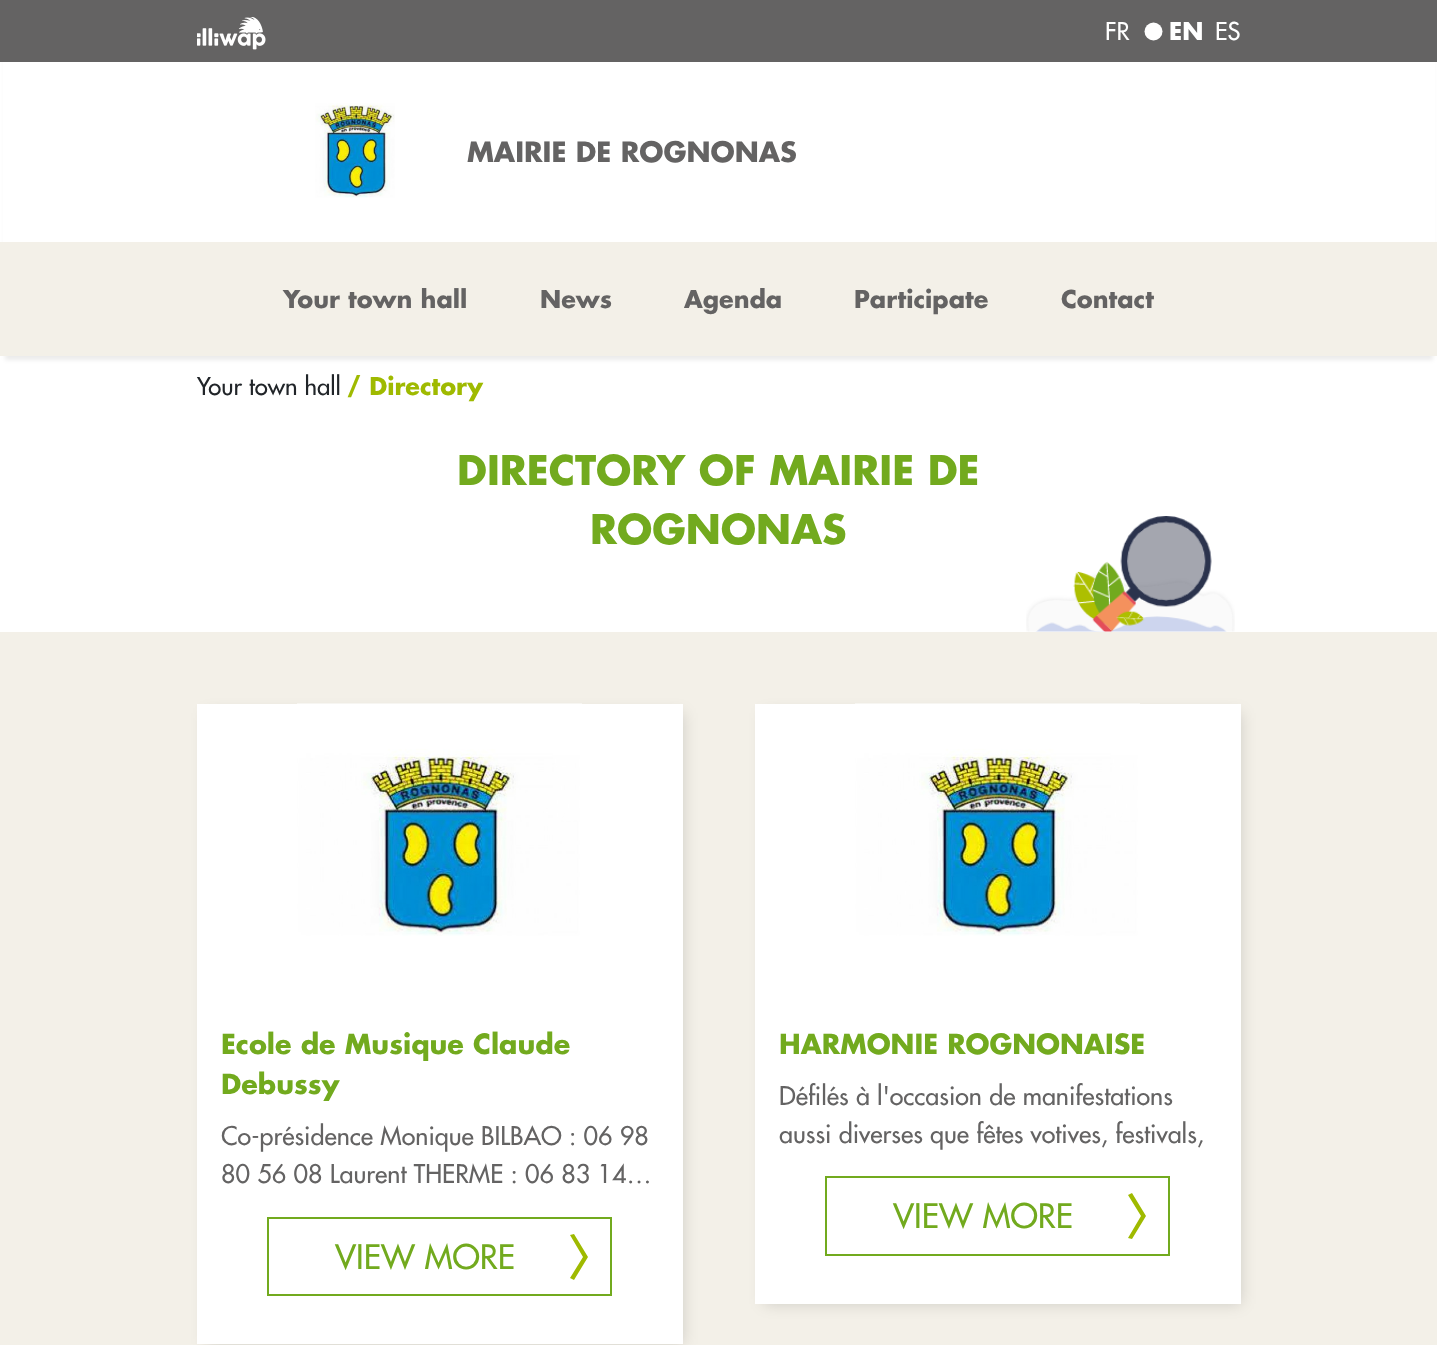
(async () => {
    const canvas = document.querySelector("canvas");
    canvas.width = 1437;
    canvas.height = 1345;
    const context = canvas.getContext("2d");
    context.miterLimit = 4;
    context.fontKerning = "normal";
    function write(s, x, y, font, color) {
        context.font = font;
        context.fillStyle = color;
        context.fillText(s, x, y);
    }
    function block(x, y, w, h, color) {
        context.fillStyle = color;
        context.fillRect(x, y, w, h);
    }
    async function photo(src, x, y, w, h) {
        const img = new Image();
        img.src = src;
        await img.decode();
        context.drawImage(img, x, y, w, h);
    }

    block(0, 0, 1437, 1345, "rgb(255, 255, 255)");
    context.fillStyle = "rgba(0, 0, 0, 0.08)";
    context.filter = "blur(2px)";
    context.beginPath();
    context.rect(5, 14, 1428, 346);
    context.fill();
    context.filter = "none";
    block(3, 62, 1432, 180, "rgb(255, 255, 255)");
    block(0, 0, 1437, 62, "rgb(100, 99, 99)");
    await photo("media/1.png", 197, 17, 69, 33);
    write("FR", 1105, 40, "24px Futura", "rgb(255, 255, 255)");
    context.beginPath();
    context.arc(1153.5, 31.5, 9, 0, Math.PI * 2);
    context.fill();
    write("EN", 1169, 40, "bold 24px Futura", "rgb(255, 255, 255)");
    write("ES", 1215, 40, "24px Futura", "rgb(255, 255, 255)");
    await photo("media/2.png", 315, 103, 80, 95);
    write("MAIRIE DE ROGNONAS", 467, 162, "bold 27.3px Futura", "rgb(100, 99, 99)");
    block(0, 242, 1437, 114, "rgb(243, 240, 232)");
    write("Your town hall", 283, 308, "bold 24px Futura", "rgb(100, 99, 99)");
    write("News", 540, 308, "bold 24px Futura", "rgb(100, 99, 99)");
    write("Agenda", 684, 308, "bold 24px Futura", "rgb(100, 99, 99)");
    write("Participate", 854, 308, "bold 24px Futura", "rgb(100, 99, 99)");
    write("Contact", 1061, 308, "bold 24px Futura", "rgb(100, 99, 99)");
    write("Your town hall", 197, 395, "24px Futura", "rgb(33, 37, 41)");
    write("/ Directory", 347, 395, "bold 24px Futura", "rgb(159, 186, 0)");
    await photo("media/3.png", 1026, 516, 209, 116);
    write("DIRECTORY OF MAIRIE DE", 457, 485, "bold 39.75px Futura", "rgb(114, 170, 30)");
    write("ROGNONAS", 590, 544, "bold 39.75px Futura", "rgb(114, 170, 30)");
    block(0, 632, 1437, 713, "rgb(243, 240, 232)");
    context.fillStyle = "rgba(0, 0, 0, 0.15)";
    context.filter = "blur(7.5px)";
    context.beginPath();
    context.rect(206, 713, 477, 631);
    context.fill();
    context.filter = "none";
    block(197, 704, 486, 640, "rgb(255, 255, 255)");
    await photo("media/4.png", 297, 703, 285, 233);
    write("Ecole de Musique Claude", 221, 1054, "bold 27px Futura", "rgb(114, 170, 30)");
    write("Debussy", 221, 1094, "bold 27px Futura", "rgb(114, 170, 30)");
    write("Co-présidence Monique BILBAO : 06 98", 221, 1145, "25.1px Futura", "rgb(100, 99, 99)");
    write("80 56 08 Laurent THERME : 06 83 14…", 221, 1183, "25.1px Futura", "rgb(100, 99, 99)");
    context.fillStyle = "rgb(159, 186, 0)";
    context.beginPath();
    context.moveTo(570, 1278);
    context.lineTo(583, 1257);
    context.lineTo(570, 1235);
    context.lineTo(574, 1234);
    context.lineTo(588, 1257);
    context.lineTo(574, 1280);
    context.closePath();
    context.fill();
    context.strokeStyle = "rgb(114, 170, 30)";
    context.lineWidth = 2;
    context.strokeRect(268, 1218, 343, 77);
    write("VIEW MORE", 335, 1269, "33px Futura", "rgb(114, 170, 30)");
    context.fillStyle = "rgba(0, 0, 0, 0.15)";
    context.filter = "blur(7.5px)";
    context.beginPath();
    context.rect(764, 713, 477, 591);
    context.fill();
    context.filter = "none";
    block(755, 704, 486, 600, "rgb(255, 255, 255)");
    await photo("media/5.png", 855, 703, 285, 233);
    write("HARMONIE ROGNONAISE", 779, 1054, "bold 27px Futura", "rgb(114, 170, 30)");
    write("Défilés à l'occasion de manifestations", 779, 1105, "25.1px Futura", "rgb(100, 99, 99)");
    write("aussi diverses que fêtes votives, festivals,", 779, 1143, "25.1px Futura", "rgb(100, 99, 99)");
    context.fillStyle = "rgb(159, 186, 0)";
    context.beginPath();
    context.moveTo(1128, 1238);
    context.lineTo(1141, 1216);
    context.lineTo(1128, 1195);
    context.lineTo(1132, 1193);
    context.lineTo(1146, 1216);
    context.lineTo(1132, 1239);
    context.closePath();
    context.fill();
    context.strokeRect(826, 1177, 343, 78);
    write("VIEW MORE", 893, 1228, "33px Futura", "rgb(114, 170, 30)");
})();
